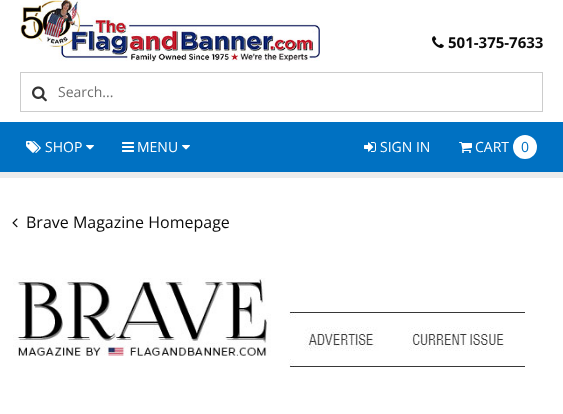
(async () => {
    const canvas = document.querySelector("canvas");
    canvas.width = 563;
    canvas.height = 414;
    const context = canvas.getContext("2d");
    context.miterLimit = 4;
    context.fontKerning = "normal";
    function write(s, x, y, font, color) {
        context.font = font;
        context.fillStyle = color;
        context.fillText(s, x, y);
    }
    function block(x, y, w, h, color) {
        context.fillStyle = color;
        context.fillRect(x, y, w, h);
    }
    async function photo(src, x, y, w, h) {
        const img = new Image();
        img.src = src;
        await img.decode();
        context.drawImage(img, x, y, w, h);
    }

    block(0, 0, 563, 414, "rgb(236, 236, 236)");
    block(0, 0, 563, 122, "rgb(255, 255, 255)");
    await photo("media/1.png", 20, 0, 300, 62);
    await photo("media/2.png", 432, 36, 12, 12);
    write("501-375-7633", 448, 48, "bold 15px Open Sans", "rgb(10, 10, 10)");
    context.strokeStyle = "rgb(204, 204, 204)";
    context.strokeRect(20.5, 72.5, 522, 39);
    await photo("media/3.png", 32, 86, 15, 16);
    write("Search...", 58, 97, "14px Open Sans", "rgb(110, 110, 110)");
    block(0, 122, 563, 50, "rgb(0, 113, 194)");
    await photo("media/4.png", 26, 141, 15, 12);
    write("SHOP", 45, 152, "14px Open Sans", "rgb(255, 255, 255)");
    await photo("media/5.png", 86, 145, 8, 5);
    await photo("media/6.png", 122, 142, 12, 10);
    write("MENU", 137, 152, "14px Open Sans", "rgb(255, 255, 255)");
    await photo("media/5.png", 182, 145, 8, 5);
    await photo("media/7.png", 364, 142, 12, 10);
    write("SIGN IN", 380, 152, "14px Open Sans", "rgb(255, 255, 255)");
    await photo("media/8.png", 459, 142, 13, 11);
    write("CART", 475, 152, "14px Open Sans", "rgb(255, 255, 255)");
    context.beginPath();
    context.arc(525, 147, 12, 0, Math.PI * 2);
    context.fill();
    write("0", 521, 152, "14px Open Sans", "rgb(0, 113, 194)");
    block(0, 178, 563, 236, "rgb(255, 255, 255)");
    await photo("media/9.png", 12, 218, 6, 10);
    write("Brave Magazine Homepage", 26, 228, "16px Open Sans", "rgb(10, 10, 10)");
    await photo("media/10.png", 13, 278, 258, 78);
    await photo("media/11.png", 288, 311, 104, 56);
    await photo("media/12.png", 392, 312, 133, 55);
})();
